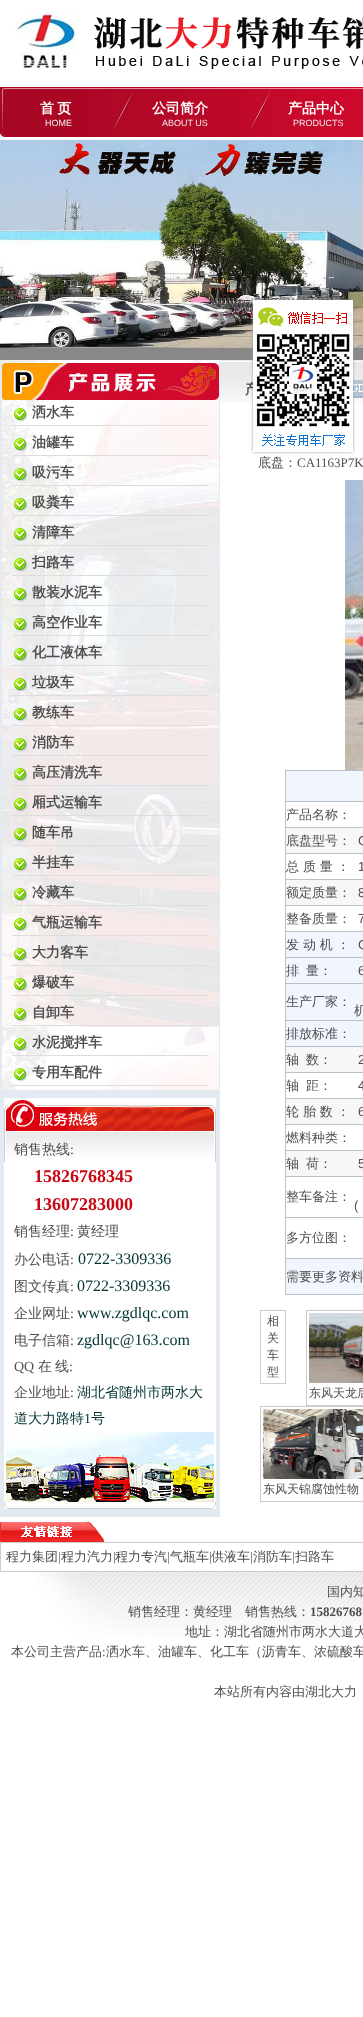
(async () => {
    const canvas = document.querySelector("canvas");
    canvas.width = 363;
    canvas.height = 2017;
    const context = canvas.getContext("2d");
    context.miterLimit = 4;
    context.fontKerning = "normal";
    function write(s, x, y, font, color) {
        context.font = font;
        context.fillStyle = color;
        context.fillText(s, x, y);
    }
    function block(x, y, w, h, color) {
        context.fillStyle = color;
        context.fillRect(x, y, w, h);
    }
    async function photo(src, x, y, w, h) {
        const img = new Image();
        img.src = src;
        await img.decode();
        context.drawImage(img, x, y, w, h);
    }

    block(0, 0, 363, 2017, "rgb(255, 255, 255)");
    await photo("media/1.png", 14, 11, 349, 58);
    await photo("media/2.png", 0, 87, 363, 50);
    context.wordSpacing = "-1px";
    write("首 页", 40, 113, "bold 14px WenQuanYi Zen Hei", "rgb(255, 255, 255)");
    context.wordSpacing = "0px";
    write("HOME", 45, 126, "9px Liberation Sans", "rgb(238, 238, 238)");
    write("公司简介", 152, 113, "bold 14px WenQuanYi Zen Hei", "rgb(255, 255, 255)");
    write("ABOUT US", 162, 126, "9px Liberation Sans", "rgb(238, 238, 238)");
    write("产品中心", 288, 113, "bold 14px WenQuanYi Zen Hei", "rgb(255, 255, 255)");
    write("PRODUCTS", 293, 126, "9px Liberation Sans", "rgb(238, 238, 238)");
    await photo("media/3.png", 0, 140, 363, 208);
    block(0, 348, 363, 12, "rgb(136, 136, 136)");
    await photo("media/34.png", 220, 360, 143, 43);
    await photo("media/35.png", 353, 380, 10, 18);
    context.save();
    context.beginPath();
    context.moveTo(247, 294);
    context.lineTo(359, 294);
    context.lineTo(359, 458);
    context.lineTo(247, 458);
    context.closePath();
    context.moveTo(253, 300);
    context.lineTo(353, 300);
    context.lineTo(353, 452);
    context.lineTo(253, 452);
    context.closePath();
    context.clip("evenodd");
    context.fillStyle = "rgb(153, 153, 153)";
    context.filter = "blur(1.5px)";
    context.beginPath();
    context.rect(253, 300, 100, 152);
    context.fill();
    context.filter = "none";
    context.restore();
    write("产", 245, 394, "bold 14px WenQuanYi Zen Hei", "rgb(79, 79, 79)");
    await photo("media/4.png", 253, 300, 100, 146);
    block(0, 360, 220, 1157, "rgb(227, 234, 242)");
    await photo("media/5.png", 2, 360, 217, 730);
    await photo("media/6.png", 2, 363, 217, 37);
    block(12, 425, 196, 1, "rgb(221, 221, 221)");
    await photo("media/7.png", 14, 408, 14, 14);
    write("洒水车", 32, 417, "bold 14px WenQuanYi Zen Hei", "rgb(79, 79, 79)");
    block(12, 455, 196, 1, "rgb(221, 221, 221)");
    await photo("media/8.png", 14, 438, 14, 14);
    write("油罐车", 32, 447, "bold 14px WenQuanYi Zen Hei", "rgb(79, 79, 79)");
    block(12, 485, 196, 1, "rgb(221, 221, 221)");
    await photo("media/9.png", 14, 468, 14, 14);
    write("吸污车", 32, 477, "bold 14px WenQuanYi Zen Hei", "rgb(79, 79, 79)");
    block(12, 515, 196, 1, "rgb(221, 221, 221)");
    await photo("media/10.png", 14, 498, 14, 14);
    write("吸粪车", 32, 507, "bold 14px WenQuanYi Zen Hei", "rgb(79, 79, 79)");
    block(12, 545, 196, 1, "rgb(221, 221, 221)");
    await photo("media/11.png", 14, 528, 14, 14);
    write("清障车", 32, 537, "bold 14px WenQuanYi Zen Hei", "rgb(79, 79, 79)");
    block(12, 575, 196, 1, "rgb(221, 221, 221)");
    await photo("media/12.png", 14, 558, 14, 14);
    write("扫路车", 32, 567, "bold 14px WenQuanYi Zen Hei", "rgb(79, 79, 79)");
    block(12, 605, 196, 1, "rgb(221, 221, 221)");
    await photo("media/13.png", 14, 588, 14, 14);
    write("散装水泥车", 32, 597, "bold 14px WenQuanYi Zen Hei", "rgb(79, 79, 79)");
    block(12, 635, 196, 1, "rgb(221, 221, 221)");
    await photo("media/14.png", 14, 618, 14, 14);
    write("高空作业车", 32, 627, "bold 14px WenQuanYi Zen Hei", "rgb(79, 79, 79)");
    block(12, 665, 196, 1, "rgb(221, 221, 221)");
    await photo("media/15.png", 14, 648, 14, 14);
    write("化工液体车", 32, 657, "bold 14px WenQuanYi Zen Hei", "rgb(79, 79, 79)");
    block(12, 695, 196, 1, "rgb(221, 221, 221)");
    await photo("media/16.png", 14, 678, 14, 14);
    write("垃圾车", 32, 687, "bold 14px WenQuanYi Zen Hei", "rgb(79, 79, 79)");
    block(12, 725, 196, 1, "rgb(221, 221, 221)");
    await photo("media/17.png", 14, 708, 14, 14);
    write("教练车", 32, 717, "bold 14px WenQuanYi Zen Hei", "rgb(79, 79, 79)");
    block(12, 755, 196, 1, "rgb(221, 221, 221)");
    await photo("media/18.png", 14, 738, 14, 14);
    write("消防车", 32, 747, "bold 14px WenQuanYi Zen Hei", "rgb(79, 79, 79)");
    block(12, 785, 196, 1, "rgb(221, 221, 221)");
    await photo("media/19.png", 14, 768, 14, 14);
    write("高压清洗车", 32, 777, "bold 14px WenQuanYi Zen Hei", "rgb(79, 79, 79)");
    block(12, 815, 196, 1, "rgb(221, 221, 221)");
    await photo("media/20.png", 14, 798, 14, 14);
    write("厢式运输车", 32, 807, "bold 14px WenQuanYi Zen Hei", "rgb(79, 79, 79)");
    block(12, 845, 196, 1, "rgb(221, 221, 221)");
    await photo("media/21.png", 14, 828, 14, 14);
    write("随车吊", 32, 837, "bold 14px WenQuanYi Zen Hei", "rgb(79, 79, 79)");
    block(12, 875, 196, 1, "rgb(221, 221, 221)");
    await photo("media/22.png", 14, 858, 14, 14);
    write("半挂车", 32, 867, "bold 14px WenQuanYi Zen Hei", "rgb(79, 79, 79)");
    block(12, 905, 196, 1, "rgb(221, 221, 221)");
    await photo("media/23.png", 14, 888, 14, 14);
    write("冷藏车", 32, 897, "bold 14px WenQuanYi Zen Hei", "rgb(79, 79, 79)");
    block(12, 935, 196, 1, "rgb(221, 221, 221)");
    await photo("media/24.png", 14, 918, 14, 14);
    write("气瓶运输车", 32, 927, "bold 14px WenQuanYi Zen Hei", "rgb(79, 79, 79)");
    block(12, 965, 196, 1, "rgb(221, 221, 221)");
    await photo("media/25.png", 14, 948, 14, 14);
    write("大力客车", 32, 957, "bold 14px WenQuanYi Zen Hei", "rgb(79, 79, 79)");
    block(12, 995, 196, 1, "rgb(221, 221, 221)");
    await photo("media/26.png", 14, 978, 14, 14);
    write("爆破车", 32, 987, "bold 14px WenQuanYi Zen Hei", "rgb(79, 79, 79)");
    block(12, 1025, 196, 1, "rgb(221, 221, 221)");
    await photo("media/27.png", 14, 1008, 14, 14);
    write("自卸车", 32, 1017, "bold 14px WenQuanYi Zen Hei", "rgb(79, 79, 79)");
    block(12, 1055, 196, 1, "rgb(221, 221, 221)");
    await photo("media/28.png", 14, 1038, 14, 14);
    write("水泥搅拌车", 32, 1047, "bold 14px WenQuanYi Zen Hei", "rgb(79, 79, 79)");
    block(12, 1085, 196, 1, "rgb(221, 221, 221)");
    await photo("media/29.png", 14, 1068, 14, 14);
    write("专用车配件", 32, 1077, "bold 14px WenQuanYi Zen Hei", "rgb(79, 79, 79)");
    await photo("media/30.png", 4, 1098, 212, 34);
    block(4, 1162, 212, 340, "rgb(255, 255, 255)");
    await photo("media/31.png", 4, 1132, 212, 30);
    write("销售热线", 14, 1154, "500 14px WenQuanYi Zen Hei", "rgb(79, 79, 79)");
    write(":", 70, 1154, "14px Liberation Serif", "rgb(79, 79, 79)");
    write("15826768345", 34, 1182, "bold 18px Liberation Serif", "rgb(200, 8, 19)");
    write("13607283000", 34, 1210, "bold 18px Liberation Serif", "rgb(200, 8, 19)");
    write("销售经理", 14, 1236, "500 14px WenQuanYi Zen Hei", "rgb(79, 79, 79)");
    write(":", 70, 1236, "14px Liberation Serif", "rgb(79, 79, 79)");
    write("黄经理", 77, 1236, "500 14px WenQuanYi Zen Hei", "rgb(79, 79, 79)");
    write("办公电话", 14, 1264, "500 14px WenQuanYi Zen Hei", "rgb(79, 79, 79)");
    write(":", 70, 1264, "14px Liberation Serif", "rgb(79, 79, 79)");
    write("0722-3309336", 78, 1264, "16px Liberation Serif", "rgb(0, 51, 51)");
    write("图文传真", 14, 1291, "500 14px WenQuanYi Zen Hei", "rgb(79, 79, 79)");
    write(":", 70, 1291, "14px Liberation Serif", "rgb(79, 79, 79)");
    write("0722-3309336", 77, 1291, "16px Liberation Serif", "rgb(0, 51, 51)");
    write("企业网址", 14, 1318, "500 14px WenQuanYi Zen Hei", "rgb(79, 79, 79)");
    write(":", 70, 1318, "14px Liberation Serif", "rgb(79, 79, 79)");
    write("www.zgdlqc.com", 77, 1318, "16px Liberation Serif", "rgb(0, 51, 51)");
    write("电子信箱", 14, 1345, "500 14px WenQuanYi Zen Hei", "rgb(79, 79, 79)");
    write(":", 70, 1345, "14px Liberation Serif", "rgb(79, 79, 79)");
    write("zgdlqc@163.com", 77, 1345, "16px Liberation Serif", "rgb(0, 51, 51)");
    write("QQ", 14, 1371, "14px Liberation Serif", "rgb(79, 79, 79)");
    write("在", 38, 1371, "500 14px WenQuanYi Zen Hei", "rgb(79, 79, 79)");
    write("线", 55, 1371, "500 14px WenQuanYi Zen Hei", "rgb(79, 79, 79)");
    write(":", 69, 1371, "14px Liberation Serif", "rgb(79, 79, 79)");
    write("企业地址", 14, 1397, "500 14px WenQuanYi Zen Hei", "rgb(79, 79, 79)");
    write(":", 70, 1397, "14px Liberation Serif", "rgb(79, 79, 79)");
    write("湖北省随州市两水大", 77, 1397, "500 14px WenQuanYi Zen Hei", "rgb(0, 51, 51)");
    write("道大力路特", 14, 1423, "500 14px WenQuanYi Zen Hei", "rgb(0, 51, 51)");
    write("1", 84, 1423, "14px Liberation Serif", "rgb(0, 51, 51)");
    write("号", 91, 1423, "500 14px WenQuanYi Zen Hei", "rgb(0, 51, 51)");
    await photo("media/32.png", 6, 1432, 208, 70);
    await photo("media/33.png", 4, 1502, 212, 7);
    write("底盘：", 258, 467, "500 13px WenQuanYi Zen Hei", "rgb(79, 79, 79)");
    write("CA1163P7K", 297, 467, "13px Liberation Serif", "rgb(79, 79, 79)");
    await photo("media/36.png", 345, 480, 18, 290);
    block(285, 770, 78, 525, "rgb(184, 194, 200)");
    block(286, 771, 77, 30, "rgb(241, 245, 254)");
    block(286, 802, 77, 25, "rgb(255, 255, 255)");
    write("产品名称：", 286, 819, "500 13px WenQuanYi Zen Hei", "rgb(79, 79, 79)");
    block(286, 828, 77, 25, "rgb(247, 247, 247)");
    write("底盘型号：", 286, 845, "500 13px WenQuanYi Zen Hei", "rgb(79, 79, 79)");
    write("C", 358, 845, "13px Liberation Sans", "rgb(79, 79, 79)");
    block(286, 854, 77, 25, "rgb(255, 255, 255)");
    write("总 质 量 ：", 286, 871, "500 13px WenQuanYi Zen Hei", "rgb(79, 79, 79)");
    write("1", 358, 871, "13px Liberation Sans", "rgb(79, 79, 79)");
    block(286, 880, 77, 25, "rgb(247, 247, 247)");
    write("额定质量：", 286, 897, "500 13px WenQuanYi Zen Hei", "rgb(79, 79, 79)");
    write("8", 358, 897, "13px Liberation Sans", "rgb(79, 79, 79)");
    block(286, 906, 77, 25, "rgb(255, 255, 255)");
    write("整备质量：", 286, 923, "500 13px WenQuanYi Zen Hei", "rgb(79, 79, 79)");
    write("7", 358, 923, "13px Liberation Sans", "rgb(79, 79, 79)");
    block(286, 932, 77, 25, "rgb(241, 245, 254)");
    write("发 动 机 ：", 286, 949, "500 13px WenQuanYi Zen Hei", "rgb(79, 79, 79)");
    write("C", 358, 949, "13px Liberation Sans", "rgb(79, 79, 79)");
    block(286, 958, 77, 25, "rgb(241, 245, 254)");
    write("排", 286, 975, "500 13px WenQuanYi Zen Hei", "rgb(79, 79, 79)");
    write("量：", 306, 975, "500 13px WenQuanYi Zen Hei", "rgb(79, 79, 79)");
    write("6", 358, 975, "13px Liberation Sans", "rgb(79, 79, 79)");
    block(286, 984, 77, 36, "rgb(241, 245, 254)");
    write("生产厂家：", 286, 1006, "500 13px WenQuanYi Zen Hei", "rgb(79, 79, 79)");
    write("机", 354, 1015, "500 13px WenQuanYi Zen Hei", "rgb(79, 79, 79)");
    block(286, 1021, 77, 25, "rgb(241, 245, 254)");
    write("排放标准：", 286, 1038, "500 13px WenQuanYi Zen Hei", "rgb(79, 79, 79)");
    block(286, 1047, 77, 25, "rgb(247, 247, 247)");
    write("轴", 286, 1064, "500 13px WenQuanYi Zen Hei", "rgb(79, 79, 79)");
    write("数：", 306, 1064, "500 13px WenQuanYi Zen Hei", "rgb(79, 79, 79)");
    write("2", 358, 1064, "13px Liberation Sans", "rgb(79, 79, 79)");
    block(286, 1073, 77, 25, "rgb(255, 255, 255)");
    write("轴", 286, 1090, "500 13px WenQuanYi Zen Hei", "rgb(79, 79, 79)");
    write("距：", 306, 1090, "500 13px WenQuanYi Zen Hei", "rgb(79, 79, 79)");
    write("4", 358, 1090, "13px Liberation Sans", "rgb(79, 79, 79)");
    block(286, 1099, 77, 25, "rgb(247, 247, 247)");
    write("轮 胎 数 ：", 286, 1116, "500 13px WenQuanYi Zen Hei", "rgb(79, 79, 79)");
    write("6", 358, 1116, "13px Liberation Sans", "rgb(79, 79, 79)");
    block(286, 1125, 77, 25, "rgb(255, 255, 255)");
    write("燃料种类：", 286, 1142, "500 13px WenQuanYi Zen Hei", "rgb(79, 79, 79)");
    block(286, 1151, 77, 25, "rgb(247, 247, 247)");
    write("轴", 286, 1168, "500 13px WenQuanYi Zen Hei", "rgb(79, 79, 79)");
    write("荷：", 306, 1168, "500 13px WenQuanYi Zen Hei", "rgb(79, 79, 79)");
    write("5", 358, 1168, "13px Liberation Sans", "rgb(79, 79, 79)");
    block(286, 1177, 77, 40, "rgb(255, 255, 255)");
    write("整车备注：", 286, 1201, "500 13px WenQuanYi Zen Hei", "rgb(79, 79, 79)");
    write("(", 354, 1210, "13px Liberation Sans", "rgb(79, 79, 79)");
    block(286, 1218, 77, 40, "rgb(255, 255, 255)");
    write("多方位图：", 286, 1242, "500 13px WenQuanYi Zen Hei", "rgb(79, 79, 79)");
    block(286, 1259, 77, 35, "rgb(241, 245, 254)");
    write("需要更多资料", 286, 1281, "500 13px WenQuanYi Zen Hei", "rgb(79, 79, 79)");
    context.strokeStyle = "rgb(204, 204, 204)";
    context.strokeRect(260.5, 1310.5, 25, 73);
    write("相", 267, 1325, "500 12px WenQuanYi Zen Hei", "rgb(79, 79, 79)");
    write("关", 267, 1342, "500 12px WenQuanYi Zen Hei", "rgb(79, 79, 79)");
    write("车", 267, 1359, "500 12px WenQuanYi Zen Hei", "rgb(79, 79, 79)");
    write("型", 267, 1376, "500 12px WenQuanYi Zen Hei", "rgb(79, 79, 79)");
    context.strokeRect(306.5, 1310.5, 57, 95);
    await photo("media/37.png", 309, 1313, 54, 70);
    write("东风天龙后", 309, 1397, "500 12px WenQuanYi Zen Hei", "rgb(79, 79, 79)");
    context.strokeRect(260.5, 1406.5, 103, 95);
    await photo("media/38.png", 263, 1409, 100, 70);
    write("东风天锦腐蚀性物", 263, 1493, "500 12px WenQuanYi Zen Hei", "rgb(79, 79, 79)");
    await photo("media/39.png", 0, 1522, 104, 20);
    context.strokeRect(0.5, 1542.5, 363, 29);
    write("程力集团", 6, 1561, "500 13px WenQuanYi Zen Hei", "rgb(79, 79, 79)");
    write("|", 58, 1561, "13px Liberation Serif", "rgb(79, 79, 79)");
    write("程力汽力", 61, 1561, "500 13px WenQuanYi Zen Hei", "rgb(79, 79, 79)");
    write("|", 113, 1561, "13px Liberation Serif", "rgb(79, 79, 79)");
    write("程力专汽", 115, 1561, "500 13px WenQuanYi Zen Hei", "rgb(79, 79, 79)");
    write("|", 167, 1561, "13px Liberation Serif", "rgb(79, 79, 79)");
    write("气瓶车", 170, 1561, "500 13px WenQuanYi Zen Hei", "rgb(79, 79, 79)");
    write("|", 209, 1561, "13px Liberation Serif", "rgb(79, 79, 79)");
    write("供液车", 211, 1561, "500 13px WenQuanYi Zen Hei", "rgb(79, 79, 79)");
    write("|", 250, 1561, "13px Liberation Serif", "rgb(79, 79, 79)");
    write("消防车", 253, 1561, "500 13px WenQuanYi Zen Hei", "rgb(79, 79, 79)");
    write("|", 292, 1561, "13px Liberation Serif", "rgb(79, 79, 79)");
    write("扫路车", 295, 1561, "500 13px WenQuanYi Zen Hei", "rgb(79, 79, 79)");
    await photo("media/40.png", 38, 1572, 325, 66);
    write("国内知", 327, 1596, "500 13px WenQuanYi Zen Hei", "rgb(79, 79, 79)");
    write("销售经理：黄经理　销售热线：", 128, 1616, "500 13px WenQuanYi Zen Hei", "rgb(79, 79, 79)");
    write("15826768", 310, 1616, "bold 13px Liberation Serif", "rgb(79, 79, 79)");
    write("地址：湖北省随州市两水大道大", 185, 1636, "500 13px WenQuanYi Zen Hei", "rgb(79, 79, 79)");
    write("本公司主营产品 洒水车、油罐车、化工车（沥青车、浓硫酸车", 11, 1656, "500 13px WenQuanYi Zen Hei", "rgb(79, 79, 79)");
    write(":", 102, 1656, "13px Liberation Serif", "rgb(79, 79, 79)");
    write("本站所有内容由湖北大力", 214, 1696, "500 13px WenQuanYi Zen Hei", "rgb(79, 79, 79)");
})();
